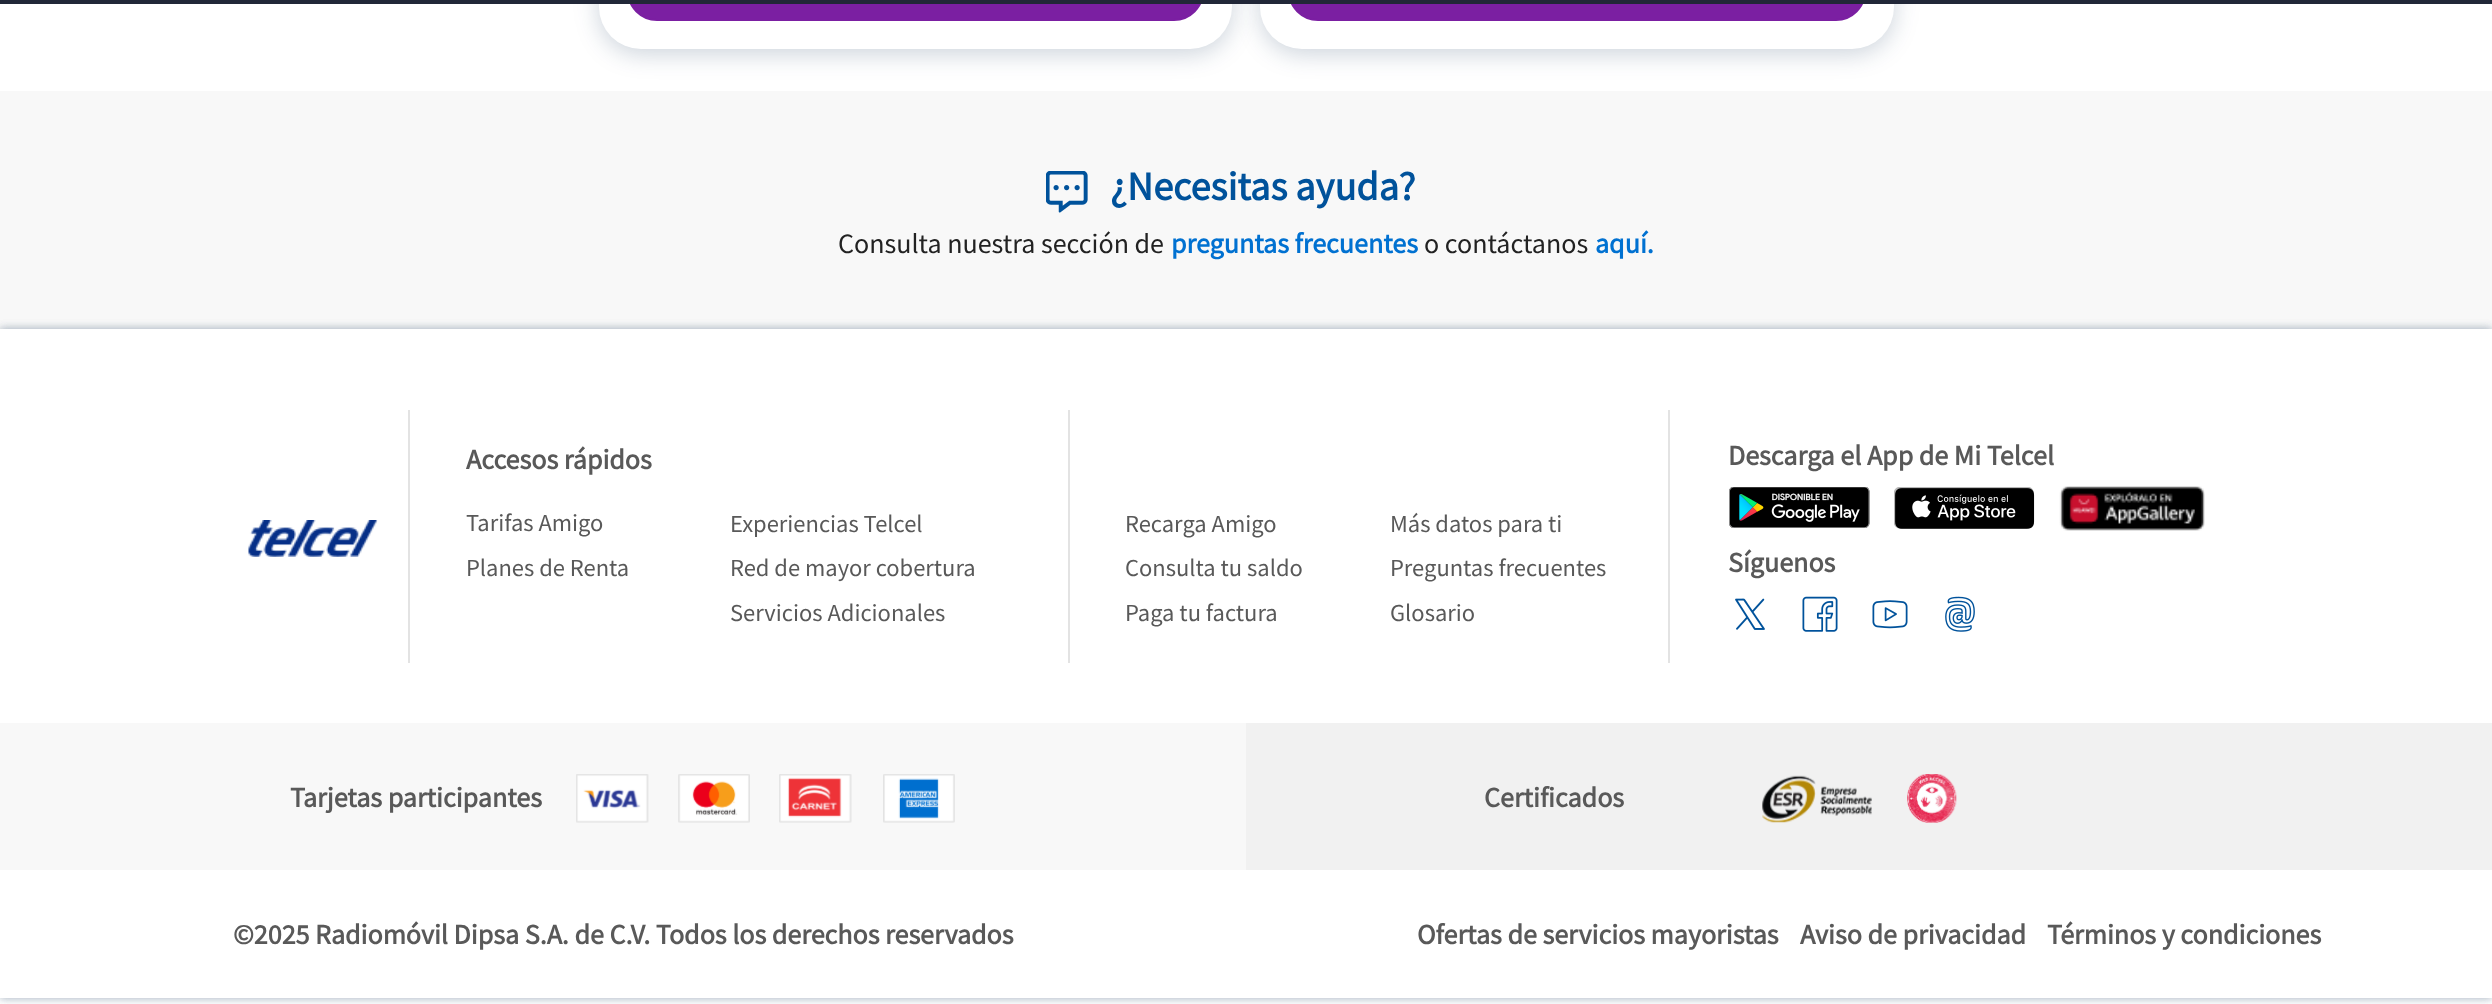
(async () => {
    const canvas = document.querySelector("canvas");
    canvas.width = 2492;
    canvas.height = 1004;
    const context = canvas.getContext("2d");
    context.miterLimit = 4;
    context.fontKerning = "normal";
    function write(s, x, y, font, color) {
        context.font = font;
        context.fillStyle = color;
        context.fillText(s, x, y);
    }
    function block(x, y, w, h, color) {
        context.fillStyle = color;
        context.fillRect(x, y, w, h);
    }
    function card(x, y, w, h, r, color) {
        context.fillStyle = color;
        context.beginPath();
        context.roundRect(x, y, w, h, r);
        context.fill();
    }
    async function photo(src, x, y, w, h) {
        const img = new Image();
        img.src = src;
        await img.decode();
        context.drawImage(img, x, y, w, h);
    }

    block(0, 0, 2492, 1004, "rgb(255, 255, 255)");
    context.fillStyle = "rgba(0, 34, 77, 0.2)";
    context.filter = "blur(12px)";
    context.beginPath();
    context.roundRect(599, -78, 633, 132, 42);
    context.fill();
    context.filter = "none";
    card(599, -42, 633, 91, 42, "rgb(255, 255, 255)");
    context.fillStyle = "rgb(123, 31, 162)";
    context.beginPath();
    context.roundRect(628, -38, 575, 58, 35.5);
    context.fill();
    context.strokeStyle = "rgb(123, 31, 162)";
    context.lineWidth = 2;
    context.stroke();
    context.fillStyle = "rgba(0, 34, 77, 0.2)";
    context.filter = "blur(12px)";
    context.beginPath();
    context.roundRect(1260, -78, 634, 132, 42);
    context.fill();
    context.filter = "none";
    card(1260, -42, 634, 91, 42, "rgb(255, 255, 255)");
    context.fillStyle = "rgb(123, 31, 162)";
    context.beginPath();
    context.roundRect(1289, -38, 576, 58, 35.5);
    context.fill();
    context.stroke();
    block(0, 0, 2492, 4, "rgb(33, 39, 56)");
    block(0, 91, 2492, 238, "rgb(248, 248, 248)");
    await photo("media/1.png", 1046, 171, 42, 42);
    write("¿Necesitas ayuda?", 1110, 200, "bold 40.25px Source Sans Pro", "rgb(0, 82, 155)");
    write("Consulta nuestra sección de", 838, 253, "28px Source Sans Pro", "rgb(34, 34, 34)");
    write("preguntas frecuentes", 1171, 253, "bold 28px Source Sans Pro", "rgb(0, 113, 209)");
    write("o contáctanos", 1424, 253, "28px Source Sans Pro", "rgb(34, 34, 34)");
    write("aquí.", 1595, 253, "bold 28px Source Sans Pro", "rgb(0, 113, 209)");
    context.fillStyle = "rgba(0, 34, 77, 0.2)";
    context.filter = "blur(5px)";
    context.beginPath();
    context.rect(0, 329, 2492, 669);
    context.fill();
    context.filter = "none";
    context.filter = "blur(5px)";
    context.beginPath();
    context.rect(0, 329, 2492, 669);
    context.fill();
    context.filter = "none";
    block(0, 329, 2492, 669, "rgb(255, 255, 255)");
    await photo("media/2.png", 248, 520, 130, 37);
    block(408, 410, 2, 253, "rgb(227, 227, 227)");
    write("Accesos rápidos", 466, 469, "bold 28px Source Sans Pro", "rgb(89, 89, 89)");
    write("Tarifas Amigo", 466, 531, "24.5px Source Sans Pro", "rgb(89, 89, 89)");
    write("Planes de Renta", 466, 576, "24.5px Source Sans Pro", "rgb(89, 89, 89)");
    write("Experiencias Telcel", 730, 532, "24.5px Source Sans Pro", "rgb(89, 89, 89)");
    write("Red de mayor cobertura", 730, 576, "24.5px Source Sans Pro", "rgb(89, 89, 89)");
    write("Servicios Adicionales", 730, 621, "24.5px Source Sans Pro", "rgb(89, 89, 89)");
    block(1068, 410, 2, 253, "rgb(227, 227, 227)");
    write("Recarga Amigo", 1125, 532, "24.5px Source Sans Pro", "rgb(89, 89, 89)");
    write("Consulta tu saldo", 1125, 576, "24.5px Source Sans Pro", "rgb(89, 89, 89)");
    write("Paga tu factura", 1125, 621, "24.5px Source Sans Pro", "rgb(89, 89, 89)");
    block(1668, 410, 2, 253, "rgb(227, 227, 227)");
    write("Más datos para ti", 1390, 532, "24.5px Source Sans Pro", "rgb(89, 89, 89)");
    write("Preguntas frecuentes", 1390, 576, "24.5px Source Sans Pro", "rgb(89, 89, 89)");
    write("Glosario", 1390, 621, "24.5px Source Sans Pro", "rgb(89, 89, 89)");
    write("Descarga el App de Mi Telcel", 1728, 465, "bold 28px Source Sans Pro", "rgb(89, 89, 89)");
    await photo("media/3.png", 1729, 487, 141, 41);
    await photo("media/4.png", 1894, 487, 141, 42);
    await photo("media/5.png", 2059, 486, 146, 45);
    write("Síguenos", 1728, 572, "bold 28px Source Sans Pro", "rgb(89, 89, 89)");
    await photo("media/6.png", 1735, 598, 30, 32);
    await photo("media/7.png", 1802, 596, 36, 36);
    await photo("media/8.png", 1872, 600, 36, 29);
    await photo("media/9.png", 1945, 596, 30, 36);
    block(0, 723, 1246, 147, "rgb(248, 248, 248)");
    write("Tarjetas participantes", 290, 807, "bold 28px Source Sans Pro", "rgb(89, 89, 89)");
    await photo("media/10.png", 576, 774, 73, 49);
    await photo("media/11.png", 678, 774, 72, 49);
    await photo("media/12.png", 779, 774, 73, 49);
    await photo("media/13.png", 883, 774, 72, 49);
    block(1246, 723, 1246, 147, "rgb(241, 241, 241)");
    write("Certificados", 1484, 807, "bold 28px Source Sans Pro", "rgb(89, 89, 89)");
    await photo("media/14.png", 1762, 775, 110, 48);
    await photo("media/15.png", 1907, 774, 50, 49);
    write("©2025 Radiomóvil Dipsa S.A. de C.V. Todos los derechos reservados", 233, 944, "bold 28px Source Sans Pro", "rgb(89, 89, 89)");
    write("Ofertas de servicios mayoristas", 1417, 944, "bold 28px Source Sans Pro", "rgb(89, 89, 89)");
    write("Aviso de privacidad", 1800, 944, "bold 28px Source Sans Pro", "rgb(89, 89, 89)");
    write("Términos y condiciones", 2047, 944, "bold 28px Source Sans Pro", "rgb(89, 89, 89)");
})();
